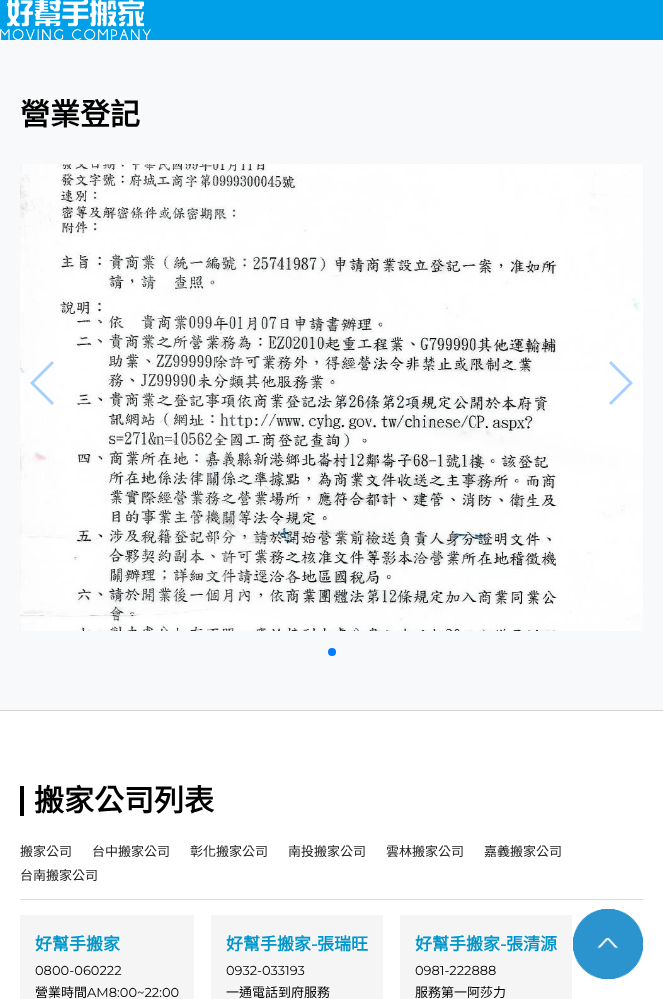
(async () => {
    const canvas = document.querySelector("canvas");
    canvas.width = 663;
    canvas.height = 999;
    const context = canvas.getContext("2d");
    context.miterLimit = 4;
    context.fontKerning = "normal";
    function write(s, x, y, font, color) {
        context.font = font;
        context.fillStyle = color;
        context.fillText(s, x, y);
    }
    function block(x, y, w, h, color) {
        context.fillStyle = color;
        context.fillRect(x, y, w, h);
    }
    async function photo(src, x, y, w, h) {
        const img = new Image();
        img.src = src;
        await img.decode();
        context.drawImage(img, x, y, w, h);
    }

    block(0, 0, 663, 999, "rgb(248, 249, 250)");
    block(0, 0, 663, 40, "rgb(0, 160, 233)");
    await photo("media/1.png", 0, 0, 151, 40);
    write("營業登記", 20, 125, "bold 30px Noto Sans CJK TC", "rgb(0, 0, 0)");
    await photo("media/2.png", 20, 164, 623, 467);
    context.fillStyle = "rgb(165, 208, 254)";
    context.beginPath();
    context.moveTo(30, 383);
    context.lineTo(52, 361);
    context.lineTo(54, 363);
    context.lineTo(34, 383);
    context.lineTo(54, 403);
    context.lineTo(52, 405);
    context.closePath();
    context.fill();
    context.fillStyle = "rgb(166, 208, 255)";
    context.beginPath();
    context.moveTo(633, 383);
    context.lineTo(611, 405);
    context.lineTo(609, 403);
    context.lineTo(629, 383);
    context.lineTo(609, 363);
    context.lineTo(611, 361);
    context.closePath();
    context.fill();
    context.fillStyle = "rgb(0, 122, 255)";
    context.beginPath();
    context.arc(332, 652, 4, 0, Math.PI * 2);
    context.fill();
    block(0, 711, 663, 288, "rgb(255, 255, 255)");
    block(0, 710, 663, 1, "rgb(210, 210, 210)");
    block(20, 786, 4, 30, "rgb(0, 0, 0)");
    write("搬家公司列表", 34, 811, "bold 30px Noto Sans CJK TC", "rgb(0, 0, 0)");
    block(20, 899, 623, 1, "rgb(221, 221, 221)");
    write("搬家公司", 20, 856, "13px Noto Sans CJK TC", "rgb(34, 34, 34)");
    write("台中搬家公司", 92, 856, "13px Noto Sans CJK TC", "rgb(34, 34, 34)");
    write("彰化搬家公司", 190, 856, "13px Noto Sans CJK TC", "rgb(34, 34, 34)");
    write("南投搬家公司", 288, 856, "13px Noto Sans CJK TC", "rgb(34, 34, 34)");
    write("雲林搬家公司", 386, 856, "13px Noto Sans CJK TC", "rgb(34, 34, 34)");
    write("嘉義搬家公司", 484, 856, "13px Noto Sans CJK TC", "rgb(34, 34, 34)");
    write("台南搬家公司", 20, 880, "13px Noto Sans CJK TC", "rgb(34, 34, 34)");
    block(20, 915, 174, 84, "rgb(245, 245, 245)");
    write("好幫手搬家", 35, 950, "bold 17px Noto Sans CJK TC", "rgb(0, 150, 201)");
    write("0800-060222", 35, 975, "100 13px Montserrat", "rgb(0, 0, 0)");
    write("營業時間", 35, 997, "13px Noto Sans CJK TC", "rgb(0, 0, 0)");
    write("AM8:00~22:00", 87, 997, "100 13px Montserrat", "rgb(0, 0, 0)");
    block(211, 915, 172, 84, "rgb(245, 245, 245)");
    write("好幫手搬家", 226, 950, "bold 17px Noto Sans CJK TC", "rgb(0, 150, 201)");
    write("-", 311, 950, "bold 17px Montserrat", "rgb(0, 150, 201)");
    write("張瑞旺", 317, 950, "bold 17px Noto Sans CJK TC", "rgb(0, 150, 201)");
    write("0932-033193", 226, 975, "100 13px Montserrat", "rgb(0, 0, 0)");
    write("一通電話到府服務", 226, 997, "13px Noto Sans CJK TC", "rgb(0, 0, 0)");
    block(400, 915, 172, 84, "rgb(245, 245, 245)");
    write("好幫手搬家", 415, 950, "bold 17px Noto Sans CJK TC", "rgb(0, 150, 201)");
    write("-", 500, 950, "bold 17px Montserrat", "rgb(0, 150, 201)");
    write("張清源", 506, 950, "bold 17px Noto Sans CJK TC", "rgb(0, 150, 201)");
    write("0981-222888", 415, 975, "100 13px Montserrat", "rgb(0, 0, 0)");
    write("服務第一阿莎力", 415, 997, "13px Noto Sans CJK TC", "rgb(0, 0, 0)");
    await photo("media/3.png", 573, 909, 70, 70);
})();
